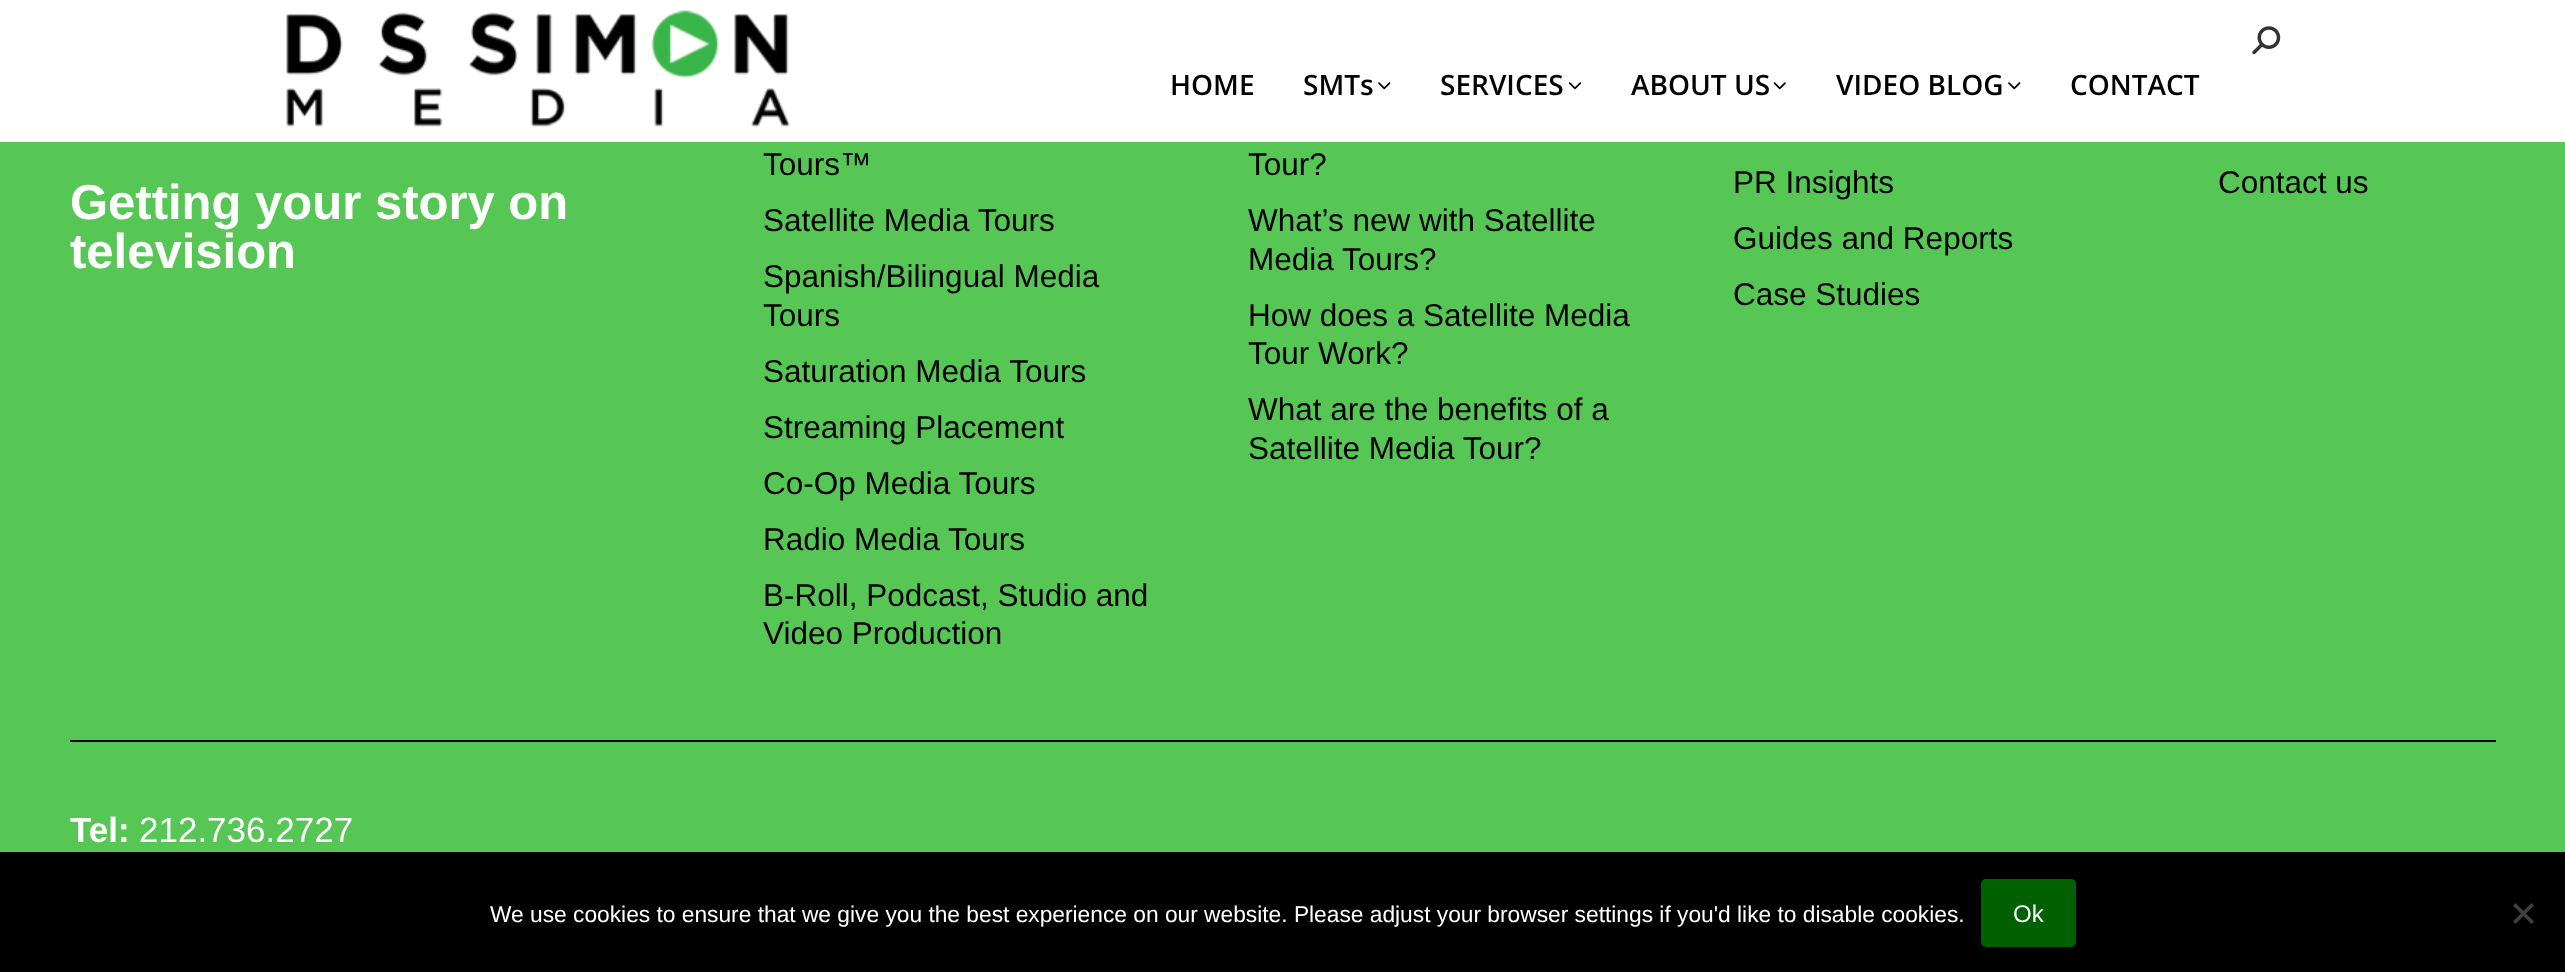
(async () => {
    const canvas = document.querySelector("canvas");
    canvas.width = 2565;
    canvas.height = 972;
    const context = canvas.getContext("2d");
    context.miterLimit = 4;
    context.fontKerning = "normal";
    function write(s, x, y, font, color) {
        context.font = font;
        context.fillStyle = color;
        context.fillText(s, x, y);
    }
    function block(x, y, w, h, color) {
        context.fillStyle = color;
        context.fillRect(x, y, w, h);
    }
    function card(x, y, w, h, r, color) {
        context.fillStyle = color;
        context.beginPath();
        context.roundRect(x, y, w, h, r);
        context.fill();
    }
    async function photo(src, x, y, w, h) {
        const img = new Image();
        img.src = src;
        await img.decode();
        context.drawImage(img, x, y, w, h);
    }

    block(0, 0, 2565, 972, "rgb(86, 198, 85)");
    block(0, 0, 2565, 142, "rgb(255, 255, 255)");
    await photo("media/1.png", 286, 10, 504, 117);
    await photo("media/2.png", 2252, 26, 29, 29);
    write("HOME", 1170, 95, "600 28px Open Sans", "rgb(0, 0, 0)");
    write("SMTs", 1303, 95, "600 28px Open Sans", "rgb(0, 0, 0)");
    await photo("media/3.png", 1378, 82, 13, 8);
    write("SERVICES", 1440, 95, "600 28px Open Sans", "rgb(0, 0, 0)");
    await photo("media/4.png", 1568, 82, 14, 8);
    write("ABOUT US", 1631, 95, "600 28px Open Sans", "rgb(0, 0, 0)");
    await photo("media/5.png", 1773, 82, 13, 8);
    write("VIDEO BLOG", 1836, 95, "600 28px Open Sans", "rgb(0, 0, 0)");
    await photo("media/3.png", 2008, 82, 13, 8);
    write("CONTACT", 2070, 95, "600 28px Open Sans", "rgb(0, 0, 0)");
    write("Getting your story on", 70, 219, "bold 49px Liberation Sans", "rgb(255, 255, 255)");
    write("television", 70, 268, "bold 49px Liberation Sans", "rgb(255, 255, 255)");
    write("Tours™", 763, 175, "31.5px Liberation Sans", "rgb(0, 0, 0)");
    write("Satellite Media Tours", 763, 231, "31.5px Liberation Sans", "rgb(0, 0, 0)");
    write("Spanish/Bilingual Media", 763, 287, "31.5px Liberation Sans", "rgb(0, 0, 0)");
    write("Tours", 763, 326, "31.5px Liberation Sans", "rgb(0, 0, 0)");
    write("Saturation Media Tours", 763, 382, "31.5px Liberation Sans", "rgb(0, 0, 0)");
    write("Streaming Placement", 763, 438, "31.5px Liberation Sans", "rgb(0, 0, 0)");
    write("Co-Op Media Tours", 763, 494, "31.5px Liberation Sans", "rgb(0, 0, 0)");
    write("Radio Media Tours", 763, 550, "31.5px Liberation Sans", "rgb(0, 0, 0)");
    write("B-Roll, Podcast, Studio and", 763, 606, "31.5px Liberation Sans", "rgb(0, 0, 0)");
    write("Video Production", 763, 644, "31.5px Liberation Sans", "rgb(0, 0, 0)");
    write("Tour?", 1248, 175, "31.5px Liberation Sans", "rgb(0, 0, 0)");
    write("What’s new with Satellite", 1248, 231, "31.5px Liberation Sans", "rgb(0, 0, 0)");
    write("Media Tours?", 1248, 270, "31.5px Liberation Sans", "rgb(0, 0, 0)");
    write("How does a Satellite Media", 1248, 326, "31.5px Liberation Sans", "rgb(0, 0, 0)");
    write("Tour Work?", 1248, 364, "31.5px Liberation Sans", "rgb(0, 0, 0)");
    write("What are the benefits of a", 1248, 420, "31.5px Liberation Sans", "rgb(0, 0, 0)");
    write("Satellite Media Tour?", 1248, 459, "31.5px Liberation Sans", "rgb(0, 0, 0)");
    write("PR Insights", 1733, 193, "31.5px Liberation Sans", "rgb(0, 0, 0)");
    write("Guides and Reports", 1733, 249, "31.5px Liberation Sans", "rgb(0, 0, 0)");
    write("Case Studies", 1733, 305, "31.5px Liberation Sans", "rgb(0, 0, 0)");
    write("Contact us", 2218, 193, "31.5px Liberation Sans", "rgb(0, 0, 0)");
    block(70, 740, 2426, 2, "rgb(0, 0, 0)");
    write("Tel:", 70, 842, "bold 35px Liberation Sans", "rgb(255, 255, 255)");
    write("212.736.2727", 139, 842, "35px Liberation Sans", "rgb(255, 255, 255)");
    block(0, 852, 2565, 120, "rgb(0, 0, 0)");
    write("We use cookies to ensure that we give you the best experience on our website. Please adjust your browser settings if you'd like to disable cookies.", 490, 922, "22.75px Liberation Sans", "rgb(255, 255, 255)");
    card(1981, 879, 95, 68, 5, "rgb(1, 96, 0)");
    write("Ok", 2013, 922, "24px Liberation Sans", "rgb(255, 255, 255)");
    context.fillStyle = "rgb(64, 64, 64)";
    context.beginPath();
    context.moveTo(2531.5, 903);
    context.lineTo(2534, 905.5);
    context.lineTo(2515.5, 924);
    context.lineTo(2513, 921.5);
    context.closePath();
    context.fill();
    context.beginPath();
    context.moveTo(2513, 905.5);
    context.lineTo(2515.5, 903);
    context.lineTo(2534, 921.5);
    context.lineTo(2531.5, 924);
    context.closePath();
    context.fill();
})();
